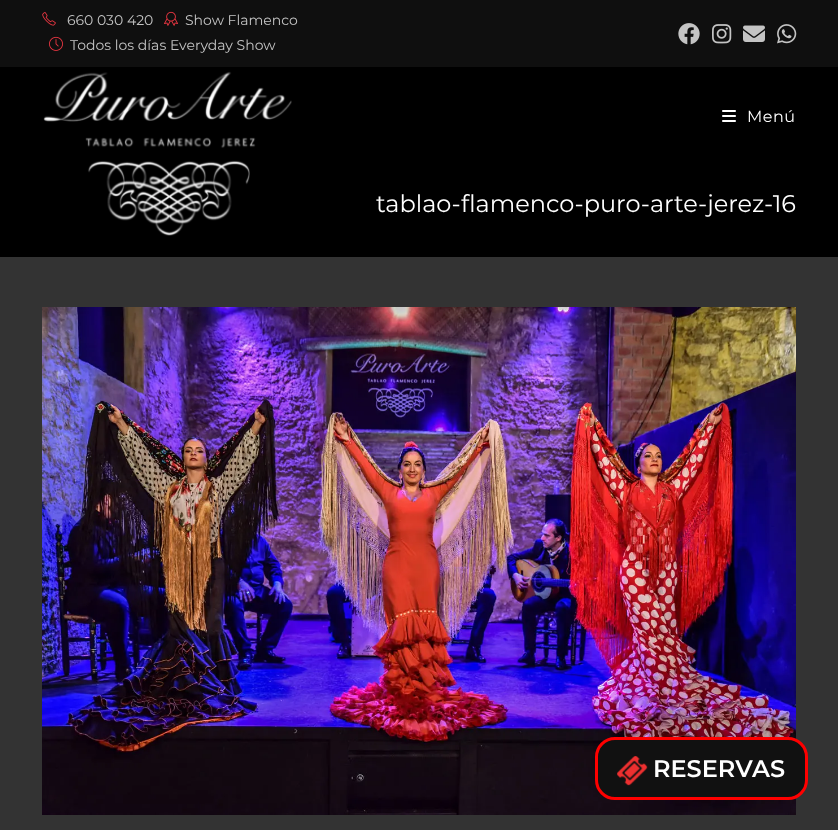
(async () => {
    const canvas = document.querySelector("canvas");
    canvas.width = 838;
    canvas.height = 830;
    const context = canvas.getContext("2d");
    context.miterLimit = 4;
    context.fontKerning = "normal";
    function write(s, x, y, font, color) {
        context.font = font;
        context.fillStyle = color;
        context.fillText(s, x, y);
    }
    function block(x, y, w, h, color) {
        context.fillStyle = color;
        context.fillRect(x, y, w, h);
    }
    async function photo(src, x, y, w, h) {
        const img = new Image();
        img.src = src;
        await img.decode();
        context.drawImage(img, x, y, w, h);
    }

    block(0, 0, 838, 830, "rgb(51, 51, 51)");
    block(0, 0, 838, 67, "rgb(15, 15, 15)");
    await photo("media/1.png", 42, 12, 14, 14);
    write("660 030 420", 67, 25, "14px Montserrat", "rgb(196, 196, 196)");
    await photo("media/2.png", 164, 11, 14, 15);
    write("Show Flamenco", 185, 25, "14px Montserrat", "rgb(196, 196, 196)");
    await photo("media/3.png", 49, 36, 14, 15);
    write("Todos los días Everyday Show", 70, 50, "14px Montserrat", "rgb(196, 196, 196)");
    await photo("media/4.png", 678, 23, 22, 22);
    await photo("media/5.png", 712, 24, 20, 20);
    await photo("media/6.png", 743, 25, 22, 17);
    await photo("media/7.png", 777, 24, 20, 20);
    block(0, 67, 838, 190, "rgb(0, 0, 0)");
    await photo("media/8.png", 43, 71, 249, 165);
    await photo("media/9.png", 722, 110, 14, 12);
    context.letterSpacing = "0.5px";
    write("Menú", 747, 122, "16px Montserrat", "rgb(255, 255, 255)");
    context.letterSpacing = "0px";
    write("tablao-flamenco-puro-arte-jerez-16", 376, 212, "24px Montserrat", "rgb(255, 255, 255)");
    await photo("media/10.png", 42, 307, 754, 508);
    context.fillStyle = "rgb(17, 17, 17)";
    context.beginPath();
    context.roundRect(596.5, 738.5, 210, 60, 18.5);
    context.fill();
    context.strokeStyle = "rgb(255, 0, 0)";
    context.lineWidth = 3;
    context.stroke();
    await photo("media/11.png", 617, 756, 31, 30);
    write("RESERVAS", 653, 777, "600 24px Montserrat", "rgb(255, 255, 255)");
})();
